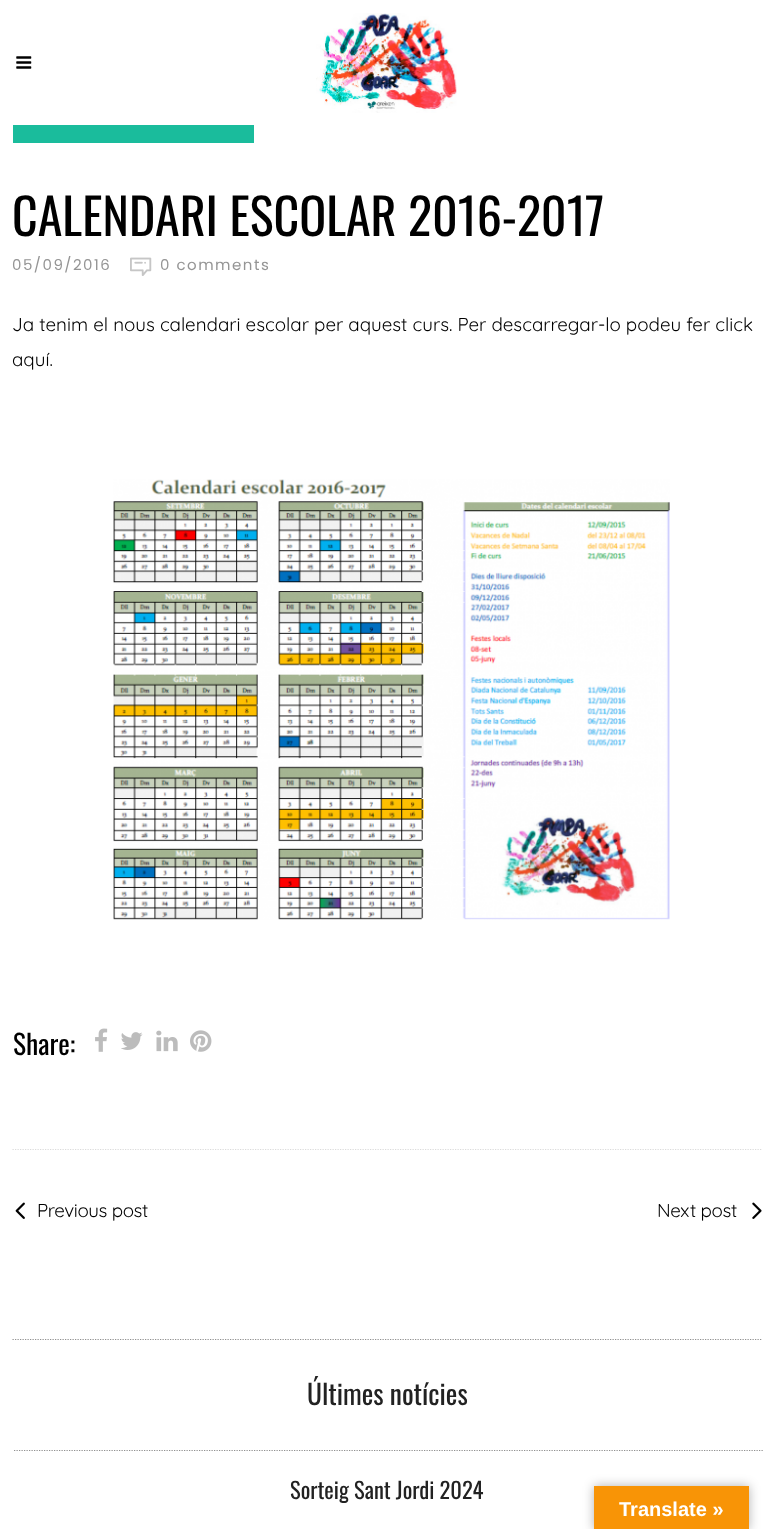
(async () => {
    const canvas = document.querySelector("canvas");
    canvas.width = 773;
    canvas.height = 1529;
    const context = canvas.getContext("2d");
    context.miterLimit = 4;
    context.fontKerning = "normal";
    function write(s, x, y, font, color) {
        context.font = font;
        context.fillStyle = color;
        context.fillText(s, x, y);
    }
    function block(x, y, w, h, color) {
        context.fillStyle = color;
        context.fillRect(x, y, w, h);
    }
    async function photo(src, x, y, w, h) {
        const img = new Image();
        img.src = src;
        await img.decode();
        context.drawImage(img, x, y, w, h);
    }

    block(0, 0, 773, 1529, "rgb(255, 255, 255)");
    await photo("media/1.png", 16, 56, 16, 13);
    await photo("media/2.png", 316, 13, 141, 100);
    block(13, 125, 241, 18, "rgb(26, 188, 156)");
    write("CALENDARI ESCOLAR 2016-2017", 12, 236, "50px Oswald", "rgb(0, 0, 0)");
    context.letterSpacing = "1.5px";
    write("05/09/2016", 12, 270, "15px Poppins", "rgb(149, 149, 149)");
    await photo("media/3.png", 130, 257, 22, 19);
    write("0 comments", 160, 270, "15px Poppins", "rgb(149, 149, 149)");
    context.letterSpacing = "0px";
    write("Ja tenim el nous calendari escolar per aquest curs. Per descarregar-lo podeu fer click", 12, 331, "18.75px Quicksand", "rgb(0, 0, 0)");
    write("aquí.", 12, 366, "18.75px Quicksand", "rgb(0, 0, 0)");
    await photo("media/4.png", 113, 479, 557, 441);
    context.beginPath();
    context.moveTo(12.5, 1149.5);
    context.lineTo(762.5, 1149.5);
    context.strokeStyle = "rgb(219, 219, 219)";
    context.lineWidth = 1.2;
    context.setLineDash([1.25, 1.25]);
    context.stroke();
    write("Share:", 13, 1055, "27.5px Oswald", "rgb(0, 0, 0)");
    await photo("media/5.png", 95, 1028, 13, 24);
    await photo("media/6.png", 121, 1032, 22, 18);
    await photo("media/7.png", 156, 1030, 22, 22);
    await photo("media/8.png", 190, 1030, 22, 22);
    await photo("media/9.png", 15, 1202, 10, 17);
    context.letterSpacing = "-0.4px";
    write("Previous post", 37, 1217, "18.75px Quicksand", "rgb(0, 0, 0)");
    write("Next post", 657, 1217, "18.75px Quicksand", "rgb(0, 0, 0)");
    await photo("media/10.png", 752, 1202, 10, 17);
    context.beginPath();
    context.moveTo(12.5, 1339.5);
    context.lineTo(762.5, 1339.5);
    context.strokeStyle = "rgb(144, 144, 144)";
    context.stroke();
    context.letterSpacing = "0px";
    write("Últimes notícies", 307, 1405, "27.5px Oswald", "rgb(34, 34, 34)");
    context.save();
    context.beginPath();
    context.rect(13, 1444, 750, 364);
    context.clip();
    context.beginPath();
    context.moveTo(-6, 1450.5);
    context.lineTo(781, 1450.5);
    context.stroke();
    context.restore();
    write("Sorteig Sant Jordi 2024", 290, 1499, "22.5px Oswald", "rgb(34, 34, 34)");
    context.fillStyle = "rgba(0, 0, 0, 0.3)";
    context.filter = "blur(5.5px)";
    context.beginPath();
    context.rect(594, 1486, 155, 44);
    context.fill();
    context.filter = "none";
    block(594, 1486, 155, 43, "rgb(248, 148, 6)");
    write("Translate »", 619, 1516, "bold 20px Liberation Sans", "rgb(255, 255, 255)");
})();
